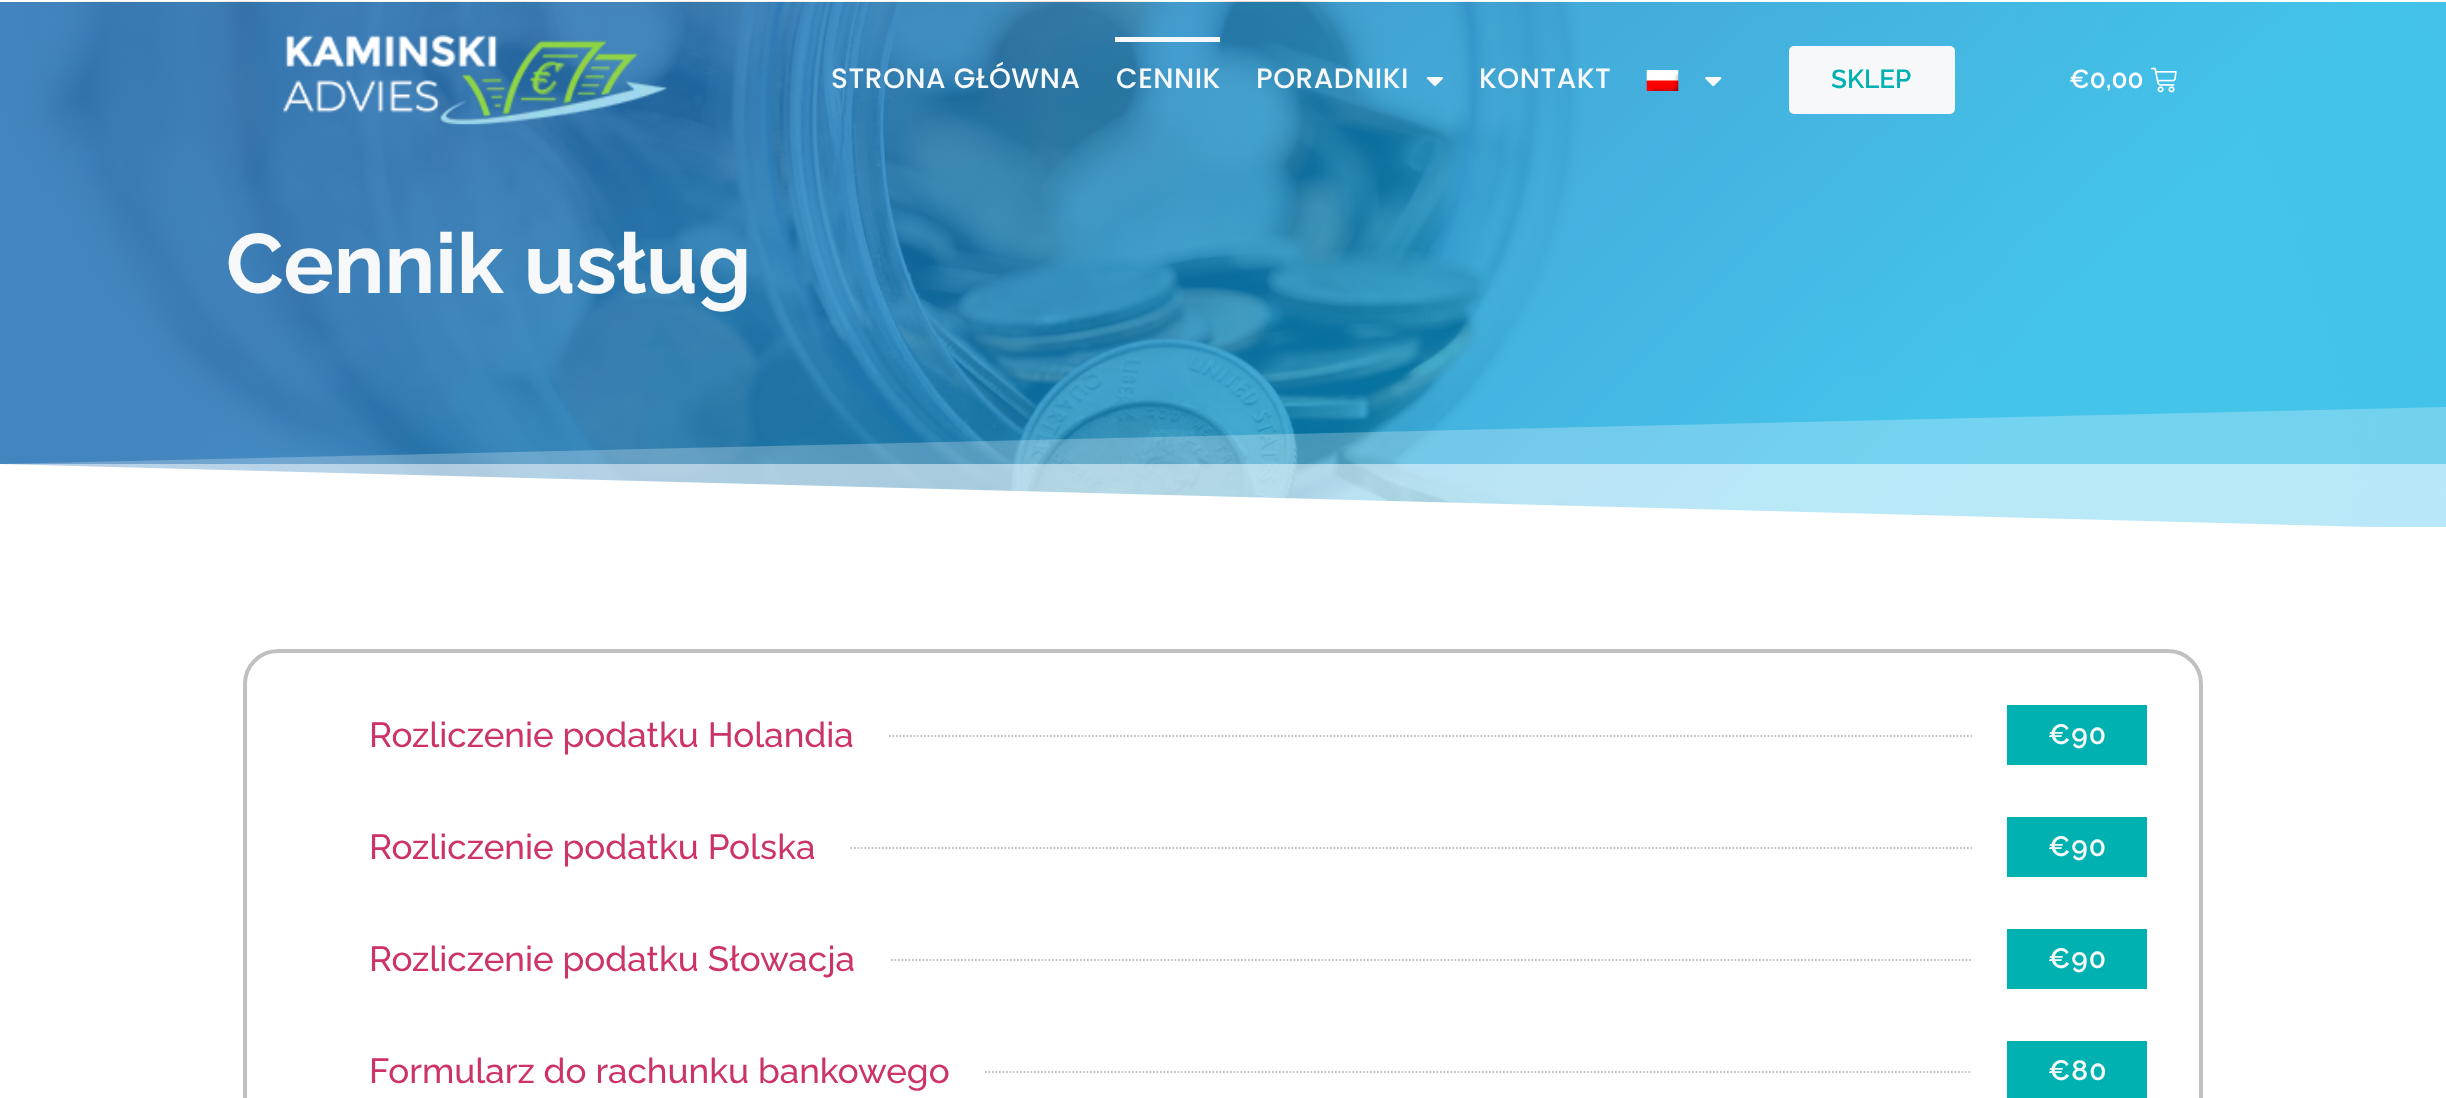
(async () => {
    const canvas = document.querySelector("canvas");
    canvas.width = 2446;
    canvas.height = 1098;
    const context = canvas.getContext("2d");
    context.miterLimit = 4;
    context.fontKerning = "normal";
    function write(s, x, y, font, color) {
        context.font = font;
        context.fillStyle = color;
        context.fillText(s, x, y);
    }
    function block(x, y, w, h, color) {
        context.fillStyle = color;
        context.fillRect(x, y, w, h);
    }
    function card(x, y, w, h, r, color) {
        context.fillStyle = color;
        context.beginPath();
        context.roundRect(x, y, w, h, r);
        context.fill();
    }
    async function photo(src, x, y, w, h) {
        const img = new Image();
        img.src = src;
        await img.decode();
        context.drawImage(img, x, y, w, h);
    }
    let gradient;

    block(0, 0, 2446, 1098, "rgb(255, 255, 255)");
    await photo("media/6.png", 0, 1, 2446, 526);
    gradient = context.createLinearGradient(480, -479, 1966, 1007);
    gradient.addColorStop(0.2, "rgba(24, 106, 178, 0.81)");
    gradient.addColorStop(0.8, "rgba(0, 175, 229, 0.73)");
    context.fillStyle = gradient;
    context.fillRect(0, 2, 2446, 525);
    await photo("media/1.png", 283, 35, 384, 90);
    context.letterSpacing = "0.5px";
    write("STRONA GŁÓWNA", 831, 88, "500 28px Poppins", "rgb(247, 248, 249)");
    block(1115, 37, 105, 5, "rgb(247, 248, 249)");
    write("CENNIK", 1116, 88, "500 28px Poppins", "rgb(247, 248, 249)");
    write("PORADNIKI", 1256, 88, "500 28px Poppins", "rgb(247, 248, 249)");
    await photo("media/2.png", 1426, 77, 18, 10);
    write("KONTAKT", 1479, 88, "500 28px Poppins", "rgb(247, 248, 249)");
    await photo("media/3.png", 1646, 70, 33, 21);
    await photo("media/4.png", 1705, 77, 17, 10);
    card(1789, 46, 166, 68, 5, "rgb(247, 248, 249)");
    context.letterSpacing = "0px";
    write("SKLEP", 1831, 88, "600 26px Raleway", "rgb(0, 177, 178)");
    write("€0,00", 2069, 88, "600 26px Raleway", "rgb(255, 255, 255)");
    await photo("media/5.png", 2151, 67, 26, 26);
    write("Cennik usług", 226, 293, "bold 84px Raleway", "rgb(247, 248, 249)");
    context.fillStyle = "rgb(255, 255, 255)";
    context.beginPath();
    context.moveTo(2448, 529);
    context.lineTo(-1, 529);
    context.lineTo(-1, 464);
    context.closePath();
    context.fill();
    block(1, 464, 2445, 63, "rgba(255, 255, 255, 0.5)");
    context.fillStyle = "rgba(255, 255, 255, 0.25)";
    context.beginPath();
    context.moveTo(-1, 529);
    context.lineTo(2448, 529);
    context.lineTo(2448, 407);
    context.lineTo(-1, 464);
    context.closePath();
    context.fill();
    context.beginPath();
    context.roundRect(245, 651, 1956, 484, 33);
    context.strokeStyle = "rgb(192, 192, 192)";
    context.lineWidth = 4;
    context.stroke();
    write("Rozliczenie podatku Holandia", 369, 747, "500 35px Raleway", "rgb(204, 51, 102)");
    context.beginPath();
    context.moveTo(889, 736);
    context.lineTo(1972, 736);
    context.strokeStyle = "rgb(195, 195, 195)";
    context.lineWidth = 1.8;
    context.setLineDash([1.75, 1.75]);
    context.stroke();
    block(2007, 705, 140, 60, "rgb(0, 177, 178)");
    context.letterSpacing = "1px";
    write("€90", 2048, 744, "600 28px Raleway", "rgb(247, 248, 249)");
    context.letterSpacing = "0px";
    write("Rozliczenie podatku Polska", 369, 859, "500 35px Raleway", "rgb(204, 51, 102)");
    context.beginPath();
    context.moveTo(850.5, 848);
    context.lineTo(1972, 848);
    context.stroke();
    block(2007, 817, 140, 60, "rgb(0, 177, 178)");
    context.letterSpacing = "1px";
    write("€90", 2048, 856, "600 28px Raleway", "rgb(247, 248, 249)");
    context.letterSpacing = "0px";
    write("Rozliczenie podatku Słowacja", 369, 971, "500 35px Raleway", "rgb(204, 51, 102)");
    context.beginPath();
    context.moveTo(891, 960);
    context.lineTo(1972, 960);
    context.stroke();
    block(2007, 929, 140, 60, "rgb(0, 177, 178)");
    context.letterSpacing = "1px";
    write("€90", 2048, 968, "600 28px Raleway", "rgb(247, 248, 249)");
    context.letterSpacing = "0px";
    write("Formularz do rachunku bankowego", 369, 1083, "500 35px Raleway", "rgb(204, 51, 102)");
    context.beginPath();
    context.moveTo(985, 1072);
    context.lineTo(1972, 1072);
    context.stroke();
    block(2007, 1041, 140, 57, "rgb(0, 177, 178)");
    context.letterSpacing = "1px";
    write("€80", 2048, 1080, "600 28px Raleway", "rgb(247, 248, 249)");
})();
